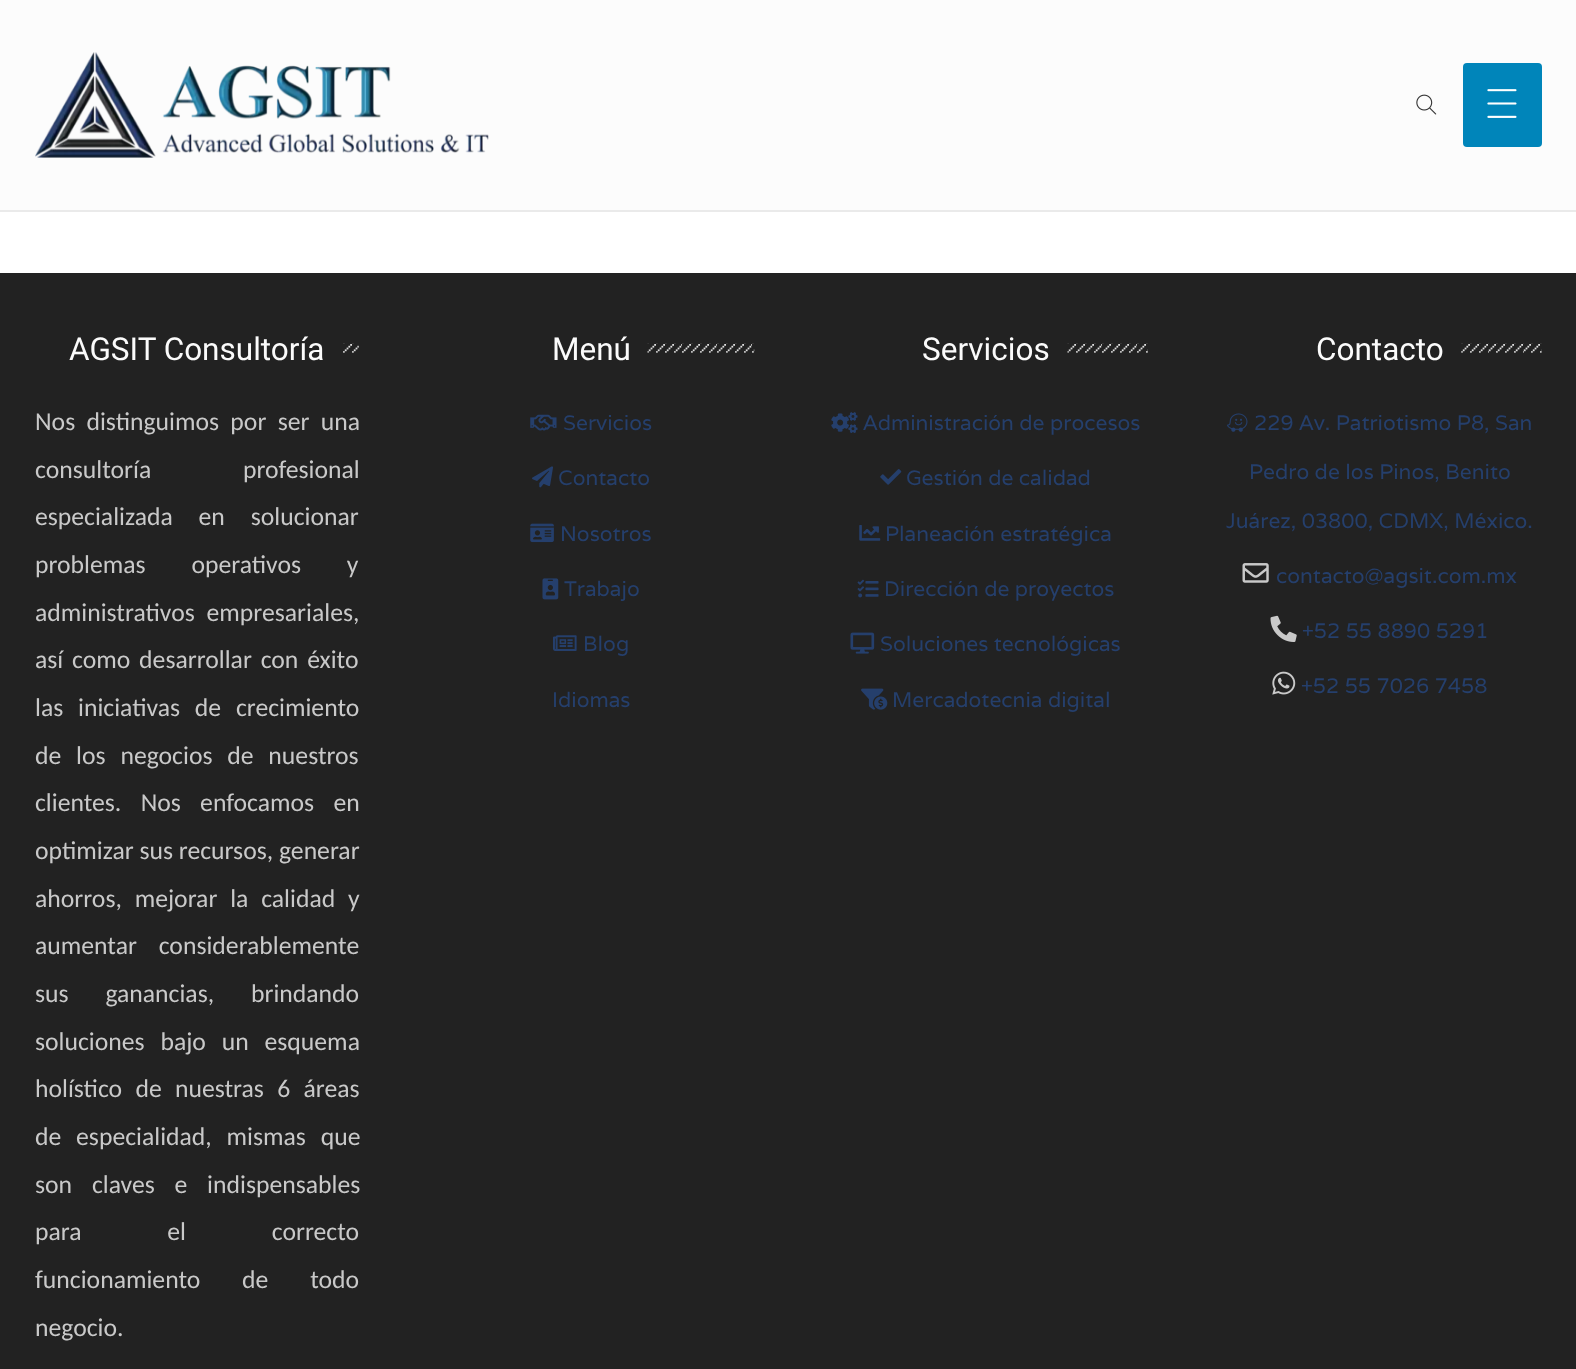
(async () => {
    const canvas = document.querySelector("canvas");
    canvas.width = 1576;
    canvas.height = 1369;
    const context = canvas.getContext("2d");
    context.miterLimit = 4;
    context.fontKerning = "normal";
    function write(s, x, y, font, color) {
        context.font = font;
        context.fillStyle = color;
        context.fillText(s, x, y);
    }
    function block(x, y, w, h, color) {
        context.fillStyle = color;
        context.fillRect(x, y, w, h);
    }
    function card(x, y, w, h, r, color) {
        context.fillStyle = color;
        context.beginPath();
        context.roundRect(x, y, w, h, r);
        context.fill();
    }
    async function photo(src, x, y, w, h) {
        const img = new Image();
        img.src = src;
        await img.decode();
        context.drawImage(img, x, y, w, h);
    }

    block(0, 0, 1576, 1369, "rgb(255, 255, 255)");
    block(0, 0, 1576, 210, "rgb(252, 252, 252)");
    block(0, 210, 1576, 2, "rgb(234, 234, 234)");
    await photo("media/1.png", 35, 52, 454, 106);
    await photo("media/2.png", 1416, 94, 21, 21);
    card(1463, 63, 79, 84, 4, "rgb(0, 133, 186)");
    await photo("media/3.png", 1487, 89, 30, 29);
    block(0, 273, 1576, 1096, "rgb(34, 34, 34)");
    write("AGSIT Consultoría", 69, 360, "31.5px Roboto", "rgb(251, 251, 251)");
    await photo("media/4.png", 343, 343, 16, 10);
    context.wordSpacing = "5.5px";
    write("Nos distinguimos por ser una", 35, 430, "25.7px Carlito", "rgb(201, 201, 201)");
    context.wordSpacing = "86px";
    write("consultoría profesional", 35, 478, "25.7px Carlito", "rgb(201, 201, 201)");
    context.wordSpacing = "20px";
    write("especializada en solucionar", 35, 525, "25.7px Carlito", "rgb(201, 201, 201)");
    context.wordSpacing = "40px";
    write("problemas operativos y", 35, 573, "25.7px Carlito", "rgb(201, 201, 201)");
    context.wordSpacing = "6px";
    write("administrativos empresariales,", 35, 621, "25.7px Carlito", "rgb(201, 201, 201)");
    context.wordSpacing = "3px";
    write("así como desarrollar con éxito", 35, 668, "25.7px Carlito", "rgb(201, 201, 201)");
    context.wordSpacing = "9px";
    write("las iniciativas de crecimiento", 35, 716, "25.7px Carlito", "rgb(201, 201, 201)");
    write("de los negocios de nuestros", 35, 764, "25.7px Carlito", "rgb(201, 201, 201)");
    context.wordSpacing = "13.5px";
    write("clientes. Nos enfocamos en", 35, 811, "25.7px Carlito", "rgb(201, 201, 201)");
    context.wordSpacing = "0px";
    write("optimizar sus recursos, generar", 35, 859, "25.7px Carlito", "rgb(201, 201, 201)");
    context.wordSpacing = "7px";
    write("ahorros, mejorar la calidad y", 35, 907, "25.7px Carlito", "rgb(201, 201, 201)");
    context.wordSpacing = "16px";
    write("aumentar considerablemente", 35, 954, "25.7px Carlito", "rgb(201, 201, 201)");
    context.wordSpacing = "31px";
    write("sus ganancias, brindando", 35, 1002, "25.7px Carlito", "rgb(201, 201, 201)");
    context.wordSpacing = "10px";
    write("soluciones bajo un esquema", 35, 1050, "25.7px Carlito", "rgb(201, 201, 201)");
    context.wordSpacing = "7.5px";
    write("holístico de nuestras 6 áreas", 35, 1097, "25.7px Carlito", "rgb(201, 201, 201)");
    context.wordSpacing = "9px";
    write("de especialidad, mismas que", 35, 1145, "25.7px Carlito", "rgb(201, 201, 201)");
    context.wordSpacing = "14px";
    write("son claves e indispensables", 35, 1193, "25.7px Carlito", "rgb(201, 201, 201)");
    context.wordSpacing = "80px";
    write("para el correcto", 35, 1240, "25.7px Carlito", "rgb(201, 201, 201)");
    context.wordSpacing = "36px";
    write("funcionamiento de todo", 35, 1288, "25.7px Carlito", "rgb(201, 201, 201)");
    context.wordSpacing = "0px";
    write("negocio.", 35, 1336, "25.7px Carlito", "rgb(201, 201, 201)");
    write("Menú", 552, 360, "31.5px Roboto", "rgb(251, 251, 251)");
    await photo("media/5.png", 647, 343, 108, 10);
    await photo("media/6.png", 530, 414, 27, 17);
    write("Servicios", 563, 430, "21px Varela", "rgb(37, 63, 108)");
    await photo("media/7.png", 532, 466, 21, 22);
    write("Contacto", 558, 485, "21px Varela", "rgb(37, 63, 108)");
    await photo("media/8.png", 530, 523, 24, 20);
    write("Nosotros", 560, 541, "21px Varela", "rgb(37, 63, 108)");
    await photo("media/9.png", 542, 578, 17, 22);
    write("Trabajo", 564, 596, "21px Varela", "rgb(37, 63, 108)");
    await photo("media/10.png", 553, 635, 24, 16);
    write("Blog", 583, 651, "21px Varela", "rgb(37, 63, 108)");
    write("Idiomas", 552, 707, "21px Varela", "rgb(37, 63, 108)");
    write("Servicios", 922, 360, "31.5px Roboto", "rgb(251, 251, 251)");
    await photo("media/11.png", 1067, 343, 81, 10);
    await photo("media/12.png", 831, 412, 27, 21);
    write("Administración de procesos", 863, 430, "21px Varela", "rgb(37, 63, 108)");
    await photo("media/13.png", 880, 469, 22, 16);
    write("Gestión de calidad", 906, 485, "21px Varela", "rgb(37, 63, 108)");
    await photo("media/14.png", 859, 525, 22, 16);
    write("Planeación estratégica", 885, 541, "21px Varela", "rgb(37, 63, 108)");
    await photo("media/15.png", 857, 579, 22, 19);
    write("Dirección de proyectos", 884, 596, "21px Varela", "rgb(37, 63, 108)");
    await photo("media/16.png", 850, 632, 25, 22);
    write("Soluciones tecnológicas", 880, 651, "21px Varela", "rgb(37, 63, 108)");
    await photo("media/17.png", 861, 688, 27, 22);
    write("Mercadotecnia digital", 892, 707, "21px Varela", "rgb(37, 63, 108)");
    write("Contacto", 1316, 360, "31.5px Roboto", "rgb(251, 251, 251)");
    await photo("media/18.png", 1461, 343, 81, 10);
    await photo("media/19.png", 1227, 413, 21, 19);
    write("229 Av. Patriotismo P8, San", 1254, 430, "21px Varela", "rgb(37, 63, 108)");
    write("Pedro de los Pinos, Benito", 1249, 479, "21px Varela", "rgb(37, 63, 108)");
    write("Juárez, 03800, CDMX, México.", 1226, 528, "21px Varela", "rgb(37, 63, 108)");
    await photo("media/20.png", 1242, 563, 27, 20);
    write("contacto@agsit.com.mx", 1276, 583, "21px Varela", "rgb(37, 63, 108)");
    await photo("media/21.png", 1270, 615, 27, 27);
    write("+52 55 8890 5291", 1302, 638, "21px Varela", "rgb(37, 63, 108)");
    await photo("media/22.png", 1272, 671, 24, 24);
    write("+52 55 7026 7458", 1301, 693, "21px Varela", "rgb(37, 63, 108)");
})();
